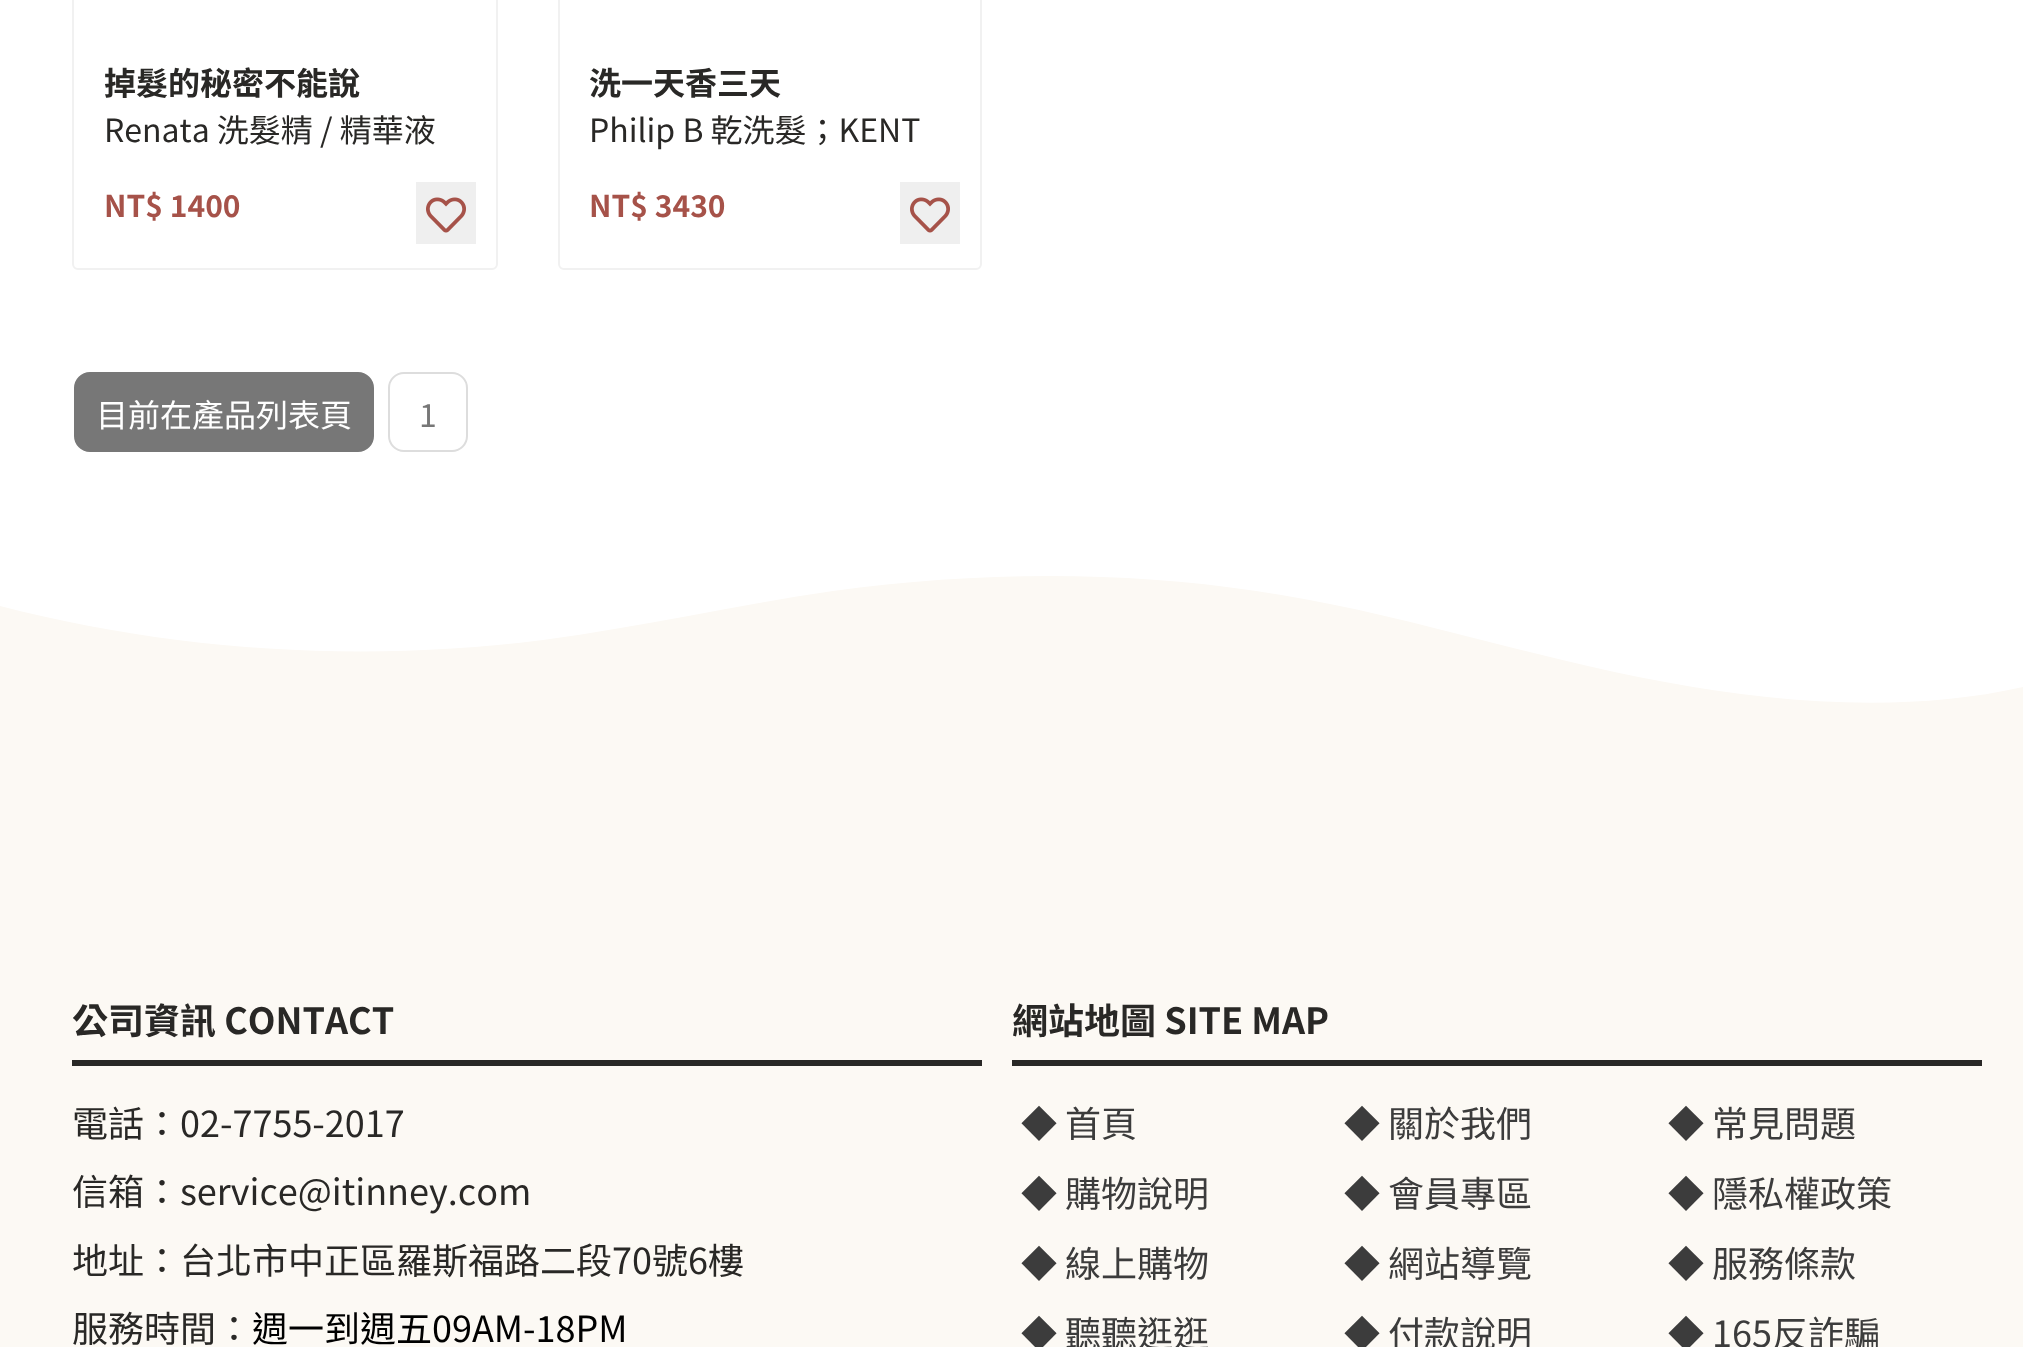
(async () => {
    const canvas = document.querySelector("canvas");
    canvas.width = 2023;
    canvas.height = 1347;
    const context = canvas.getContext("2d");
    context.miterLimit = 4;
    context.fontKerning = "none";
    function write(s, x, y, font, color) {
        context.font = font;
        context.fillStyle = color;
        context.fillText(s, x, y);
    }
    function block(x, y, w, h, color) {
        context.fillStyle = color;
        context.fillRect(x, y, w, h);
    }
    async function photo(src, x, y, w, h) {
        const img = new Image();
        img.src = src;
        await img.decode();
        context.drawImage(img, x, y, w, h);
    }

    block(0, 0, 2023, 1347, "rgb(255, 255, 255)");
    context.beginPath();
    context.roundRect(73, -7, 424, 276, 5);
    context.strokeStyle = "rgb(241, 241, 241)";
    context.lineWidth = 2;
    context.stroke();
    write("掉髮的秘密不能說", 104, 95, "bold 32px Noto Sans TC", "rgb(41, 40, 38)");
    write("Renata 洗髮精 / 精華液", 104, 142, "32px Noto Sans TC", "rgb(41, 40, 38)");
    write("NT$ 1400", 104, 217, "bold 30px Noto Sans TC", "rgb(166, 82, 73)");
    block(416, 182, 60, 62, "rgb(239, 239, 239)");
    await photo("media/1.png", 426, 197, 40, 36);
    context.beginPath();
    context.roundRect(559, -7, 422, 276, 5);
    context.stroke();
    write("洗一天香三天", 589, 95, "bold 32px Noto Sans TC", "rgb(41, 40, 38)");
    write("Philip B 乾洗髮；KENT", 589, 142, "32px Noto Sans TC", "rgb(41, 40, 38)");
    write("NT$ 3430", 589, 217, "bold 30px Noto Sans TC", "rgb(166, 82, 73)");
    block(900, 182, 60, 62, "rgb(239, 239, 239)");
    await photo("media/1.png", 910, 197, 40, 36);
    context.fillStyle = "rgb(119, 119, 119)";
    context.beginPath();
    context.roundRect(75, 373, 298, 78, 15);
    context.fill();
    context.strokeStyle = "rgb(119, 119, 119)";
    context.stroke();
    write("目前在產品列表頁", 96, 427, "32px Noto Sans TC", "rgb(255, 255, 255)");
    context.beginPath();
    context.roundRect(389, 373, 78, 78, 15);
    context.strokeStyle = "rgb(221, 221, 221)";
    context.stroke();
    write("1", 419, 427, "32px Noto Sans TC", "rgb(119, 119, 119)");
    block(0, 576, 2023, 771, "rgb(252, 249, 244)");
    context.fillStyle = "rgb(255, 255, 255)";
    context.beginPath();
    context.moveTo(543, 640);
    context.bezierCurveTo(641, 627, 736, 605, 833, 591);
    context.bezierCurveTo(972, 572, 1117, 570, 1256, 591);
    context.bezierCurveTo(1391, 610, 1531, 658, 1665, 682);
    context.bezierCurveTo(1783, 704, 1912, 713, 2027, 686);
    context.lineTo(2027, 574);
    context.lineTo(0, 574);
    context.lineTo(0, 606);
    context.bezierCurveTo(173, 651, 361, 663, 543, 640);
    context.closePath();
    context.fill();
    write("公司資訊 CONTACT", 72, 1034, "bold 36px Noto Sans TC", "rgb(41, 40, 38)");
    block(72, 1060, 910, 6, "rgb(41, 40, 38)");
    write("電話：02-7755-2017", 72, 1137, "36px Noto Sans TC", "rgb(41, 40, 38)");
    write("信箱：service@itinney.com", 72, 1205, "36px Noto Sans TC", "rgb(41, 40, 38)");
    write("地址：台北市中正區羅斯福路二段70號6樓", 72, 1274, "36px Noto Sans TC", "rgb(41, 40, 38)");
    write("服務時間：", 72, 1342, "36px Noto Sans TC", "rgb(41, 40, 38)");
    write("週一到週五09AM-18PM", 252, 1342, "36px Noto Sans TC", "rgb(0, 0, 0)");
    write("網站地圖 SITE MAP", 1012, 1034, "bold 36px Noto Sans TC", "rgb(41, 40, 38)");
    block(1012, 1060, 970, 6, "rgb(41, 40, 38)");
    write("◆ 首頁", 1021, 1137, "36px Noto Sans TC", "rgb(60, 60, 60)");
    write("◆ 購物說明", 1021, 1207, "36px Noto Sans TC", "rgb(60, 60, 60)");
    write("◆ 線上購物", 1021, 1277, "36px Noto Sans TC", "rgb(60, 60, 60)");
    write("◆ 聽聽逛逛", 1021, 1347, "36px Noto Sans TC", "rgb(60, 60, 60)");
    write("◆ 關於我們", 1344, 1137, "36px Noto Sans TC", "rgb(60, 60, 60)");
    write("◆ 會員專區", 1344, 1207, "36px Noto Sans TC", "rgb(60, 60, 60)");
    write("◆ 網站導覽", 1344, 1277, "36px Noto Sans TC", "rgb(60, 60, 60)");
    write("◆ 付款說明", 1344, 1347, "36px Noto Sans TC", "rgb(60, 60, 60)");
    write("◆ 常見問題", 1668, 1137, "36px Noto Sans TC", "rgb(60, 60, 60)");
    write("◆ 隱私權政策", 1668, 1207, "36px Noto Sans TC", "rgb(60, 60, 60)");
    write("◆ 服務條款", 1668, 1277, "36px Noto Sans TC", "rgb(60, 60, 60)");
    write("◆ 165反詐騙", 1668, 1347, "36px Noto Sans TC", "rgb(60, 60, 60)");
})();
